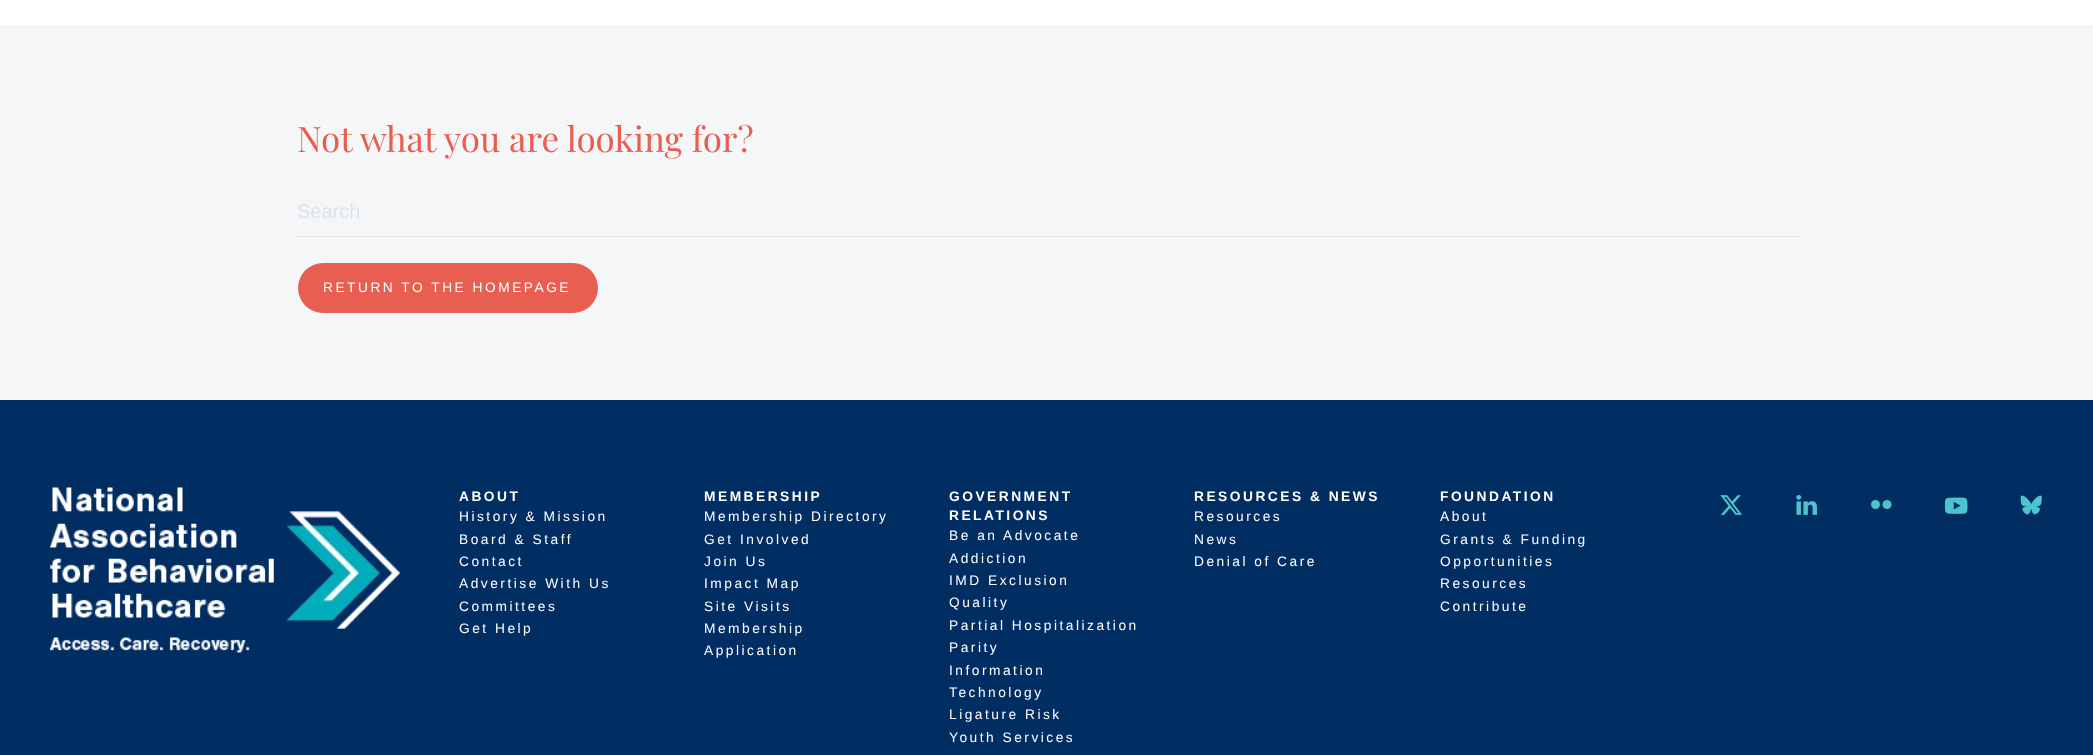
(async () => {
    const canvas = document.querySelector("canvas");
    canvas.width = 2093;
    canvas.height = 755;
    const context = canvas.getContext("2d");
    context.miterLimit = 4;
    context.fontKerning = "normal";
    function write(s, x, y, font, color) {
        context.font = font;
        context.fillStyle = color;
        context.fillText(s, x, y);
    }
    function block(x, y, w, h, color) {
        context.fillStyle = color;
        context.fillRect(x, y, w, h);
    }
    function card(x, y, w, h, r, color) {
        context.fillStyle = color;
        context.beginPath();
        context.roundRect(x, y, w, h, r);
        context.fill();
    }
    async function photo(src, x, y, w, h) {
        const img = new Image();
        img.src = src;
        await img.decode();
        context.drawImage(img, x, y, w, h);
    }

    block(0, 0, 2093, 755, "rgb(255, 255, 255)");
    block(0, 25, 2093, 375, "rgb(245, 246, 248)");
    write("Not what you are looking for?", 297, 152, "35px Playfair Display", "rgb(232, 95, 81)");
    block(298, 236, 1500, 1, "rgb(229, 229, 231)");
    write("Search", 297, 218, "20px Liberation Sans", "rgb(221, 226, 233)");
    card(298, 263, 300, 50, 25, "rgb(232, 95, 81)");
    context.letterSpacing = "2.5px";
    write("RETURN TO THE HOMEPAGE", 323, 292, "13.75px Liberation Sans", "rgb(255, 255, 255)");
    block(0, 400, 2093, 355, "rgb(0, 45, 98)");
    await photo("media/1.png", 50, 487, 350, 166);
    write("ABOUT", 459, 501, "bold 13.75px Liberation Sans", "rgb(255, 255, 255)");
    write("History & Mission", 459, 521, "13.75px Liberation Sans", "rgb(255, 255, 255)");
    write("Board & Staff", 459, 544, "13.75px Liberation Sans", "rgb(255, 255, 255)");
    write("Contact", 459, 566, "13.75px Liberation Sans", "rgb(255, 255, 255)");
    write("Advertise With Us", 459, 588, "13.75px Liberation Sans", "rgb(255, 255, 255)");
    write("Committees", 459, 611, "13.75px Liberation Sans", "rgb(255, 255, 255)");
    write("Get Help", 459, 633, "13.75px Liberation Sans", "rgb(255, 255, 255)");
    write("MEMBERSHIP", 704, 501, "bold 13.75px Liberation Sans", "rgb(255, 255, 255)");
    write("Membership Directory", 704, 521, "13.75px Liberation Sans", "rgb(255, 255, 255)");
    write("Get Involved", 704, 544, "13.75px Liberation Sans", "rgb(255, 255, 255)");
    write("Join Us", 704, 566, "13.75px Liberation Sans", "rgb(255, 255, 255)");
    write("Impact Map", 704, 588, "13.75px Liberation Sans", "rgb(255, 255, 255)");
    write("Site Visits", 704, 611, "13.75px Liberation Sans", "rgb(255, 255, 255)");
    write("Membership", 704, 633, "13.75px Liberation Sans", "rgb(255, 255, 255)");
    write("Application", 704, 655, "13.75px Liberation Sans", "rgb(255, 255, 255)");
    write("GOVERNMENT", 949, 501, "bold 13.75px Liberation Sans", "rgb(255, 255, 255)");
    write("RELATIONS", 949, 520, "bold 13.75px Liberation Sans", "rgb(255, 255, 255)");
    write("Be an Advocate", 949, 540, "13.75px Liberation Sans", "rgb(255, 255, 255)");
    write("Addiction", 949, 563, "13.75px Liberation Sans", "rgb(255, 255, 255)");
    write("IMD Exclusion", 949, 585, "13.75px Liberation Sans", "rgb(255, 255, 255)");
    write("Quality", 949, 607, "13.75px Liberation Sans", "rgb(255, 255, 255)");
    write("Partial Hospitalization", 949, 630, "13.75px Liberation Sans", "rgb(255, 255, 255)");
    write("Parity", 949, 652, "13.75px Liberation Sans", "rgb(255, 255, 255)");
    write("Information", 949, 675, "13.75px Liberation Sans", "rgb(255, 255, 255)");
    write("Technology", 949, 697, "13.75px Liberation Sans", "rgb(255, 255, 255)");
    write("Ligature Risk", 949, 719, "13.75px Liberation Sans", "rgb(255, 255, 255)");
    write("Youth Services", 949, 742, "13.75px Liberation Sans", "rgb(255, 255, 255)");
    write("RESOURCES & NEWS", 1194, 501, "bold 13.75px Liberation Sans", "rgb(255, 255, 255)");
    write("Resources", 1194, 521, "13.75px Liberation Sans", "rgb(255, 255, 255)");
    write("News", 1194, 544, "13.75px Liberation Sans", "rgb(255, 255, 255)");
    write("Denial of Care", 1194, 566, "13.75px Liberation Sans", "rgb(255, 255, 255)");
    write("FOUNDATION", 1440, 501, "bold 13.75px Liberation Sans", "rgb(255, 255, 255)");
    write("About", 1440, 521, "13.75px Liberation Sans", "rgb(255, 255, 255)");
    write("Grants & Funding", 1440, 544, "13.75px Liberation Sans", "rgb(255, 255, 255)");
    write("Opportunities", 1440, 566, "13.75px Liberation Sans", "rgb(255, 255, 255)");
    write("Resources", 1440, 588, "13.75px Liberation Sans", "rgb(255, 255, 255)");
    write("Contribute", 1440, 611, "13.75px Liberation Sans", "rgb(255, 255, 255)");
    await photo("media/2.png", 1720, 495, 22, 20);
    await photo("media/3.png", 1796, 495, 21, 20);
    context.fillStyle = "rgb(77, 195, 204)";
    context.beginPath();
    context.arc(1875.5, 504.5, 4.5, 0, Math.PI * 2);
    context.fill();
    context.beginPath();
    context.arc(1887, 504.5, 4.5, 0, Math.PI * 2);
    context.fill();
    await photo("media/4.png", 1945, 497, 23, 17);
    await photo("media/5.png", 2020, 495, 22, 20);
})();
